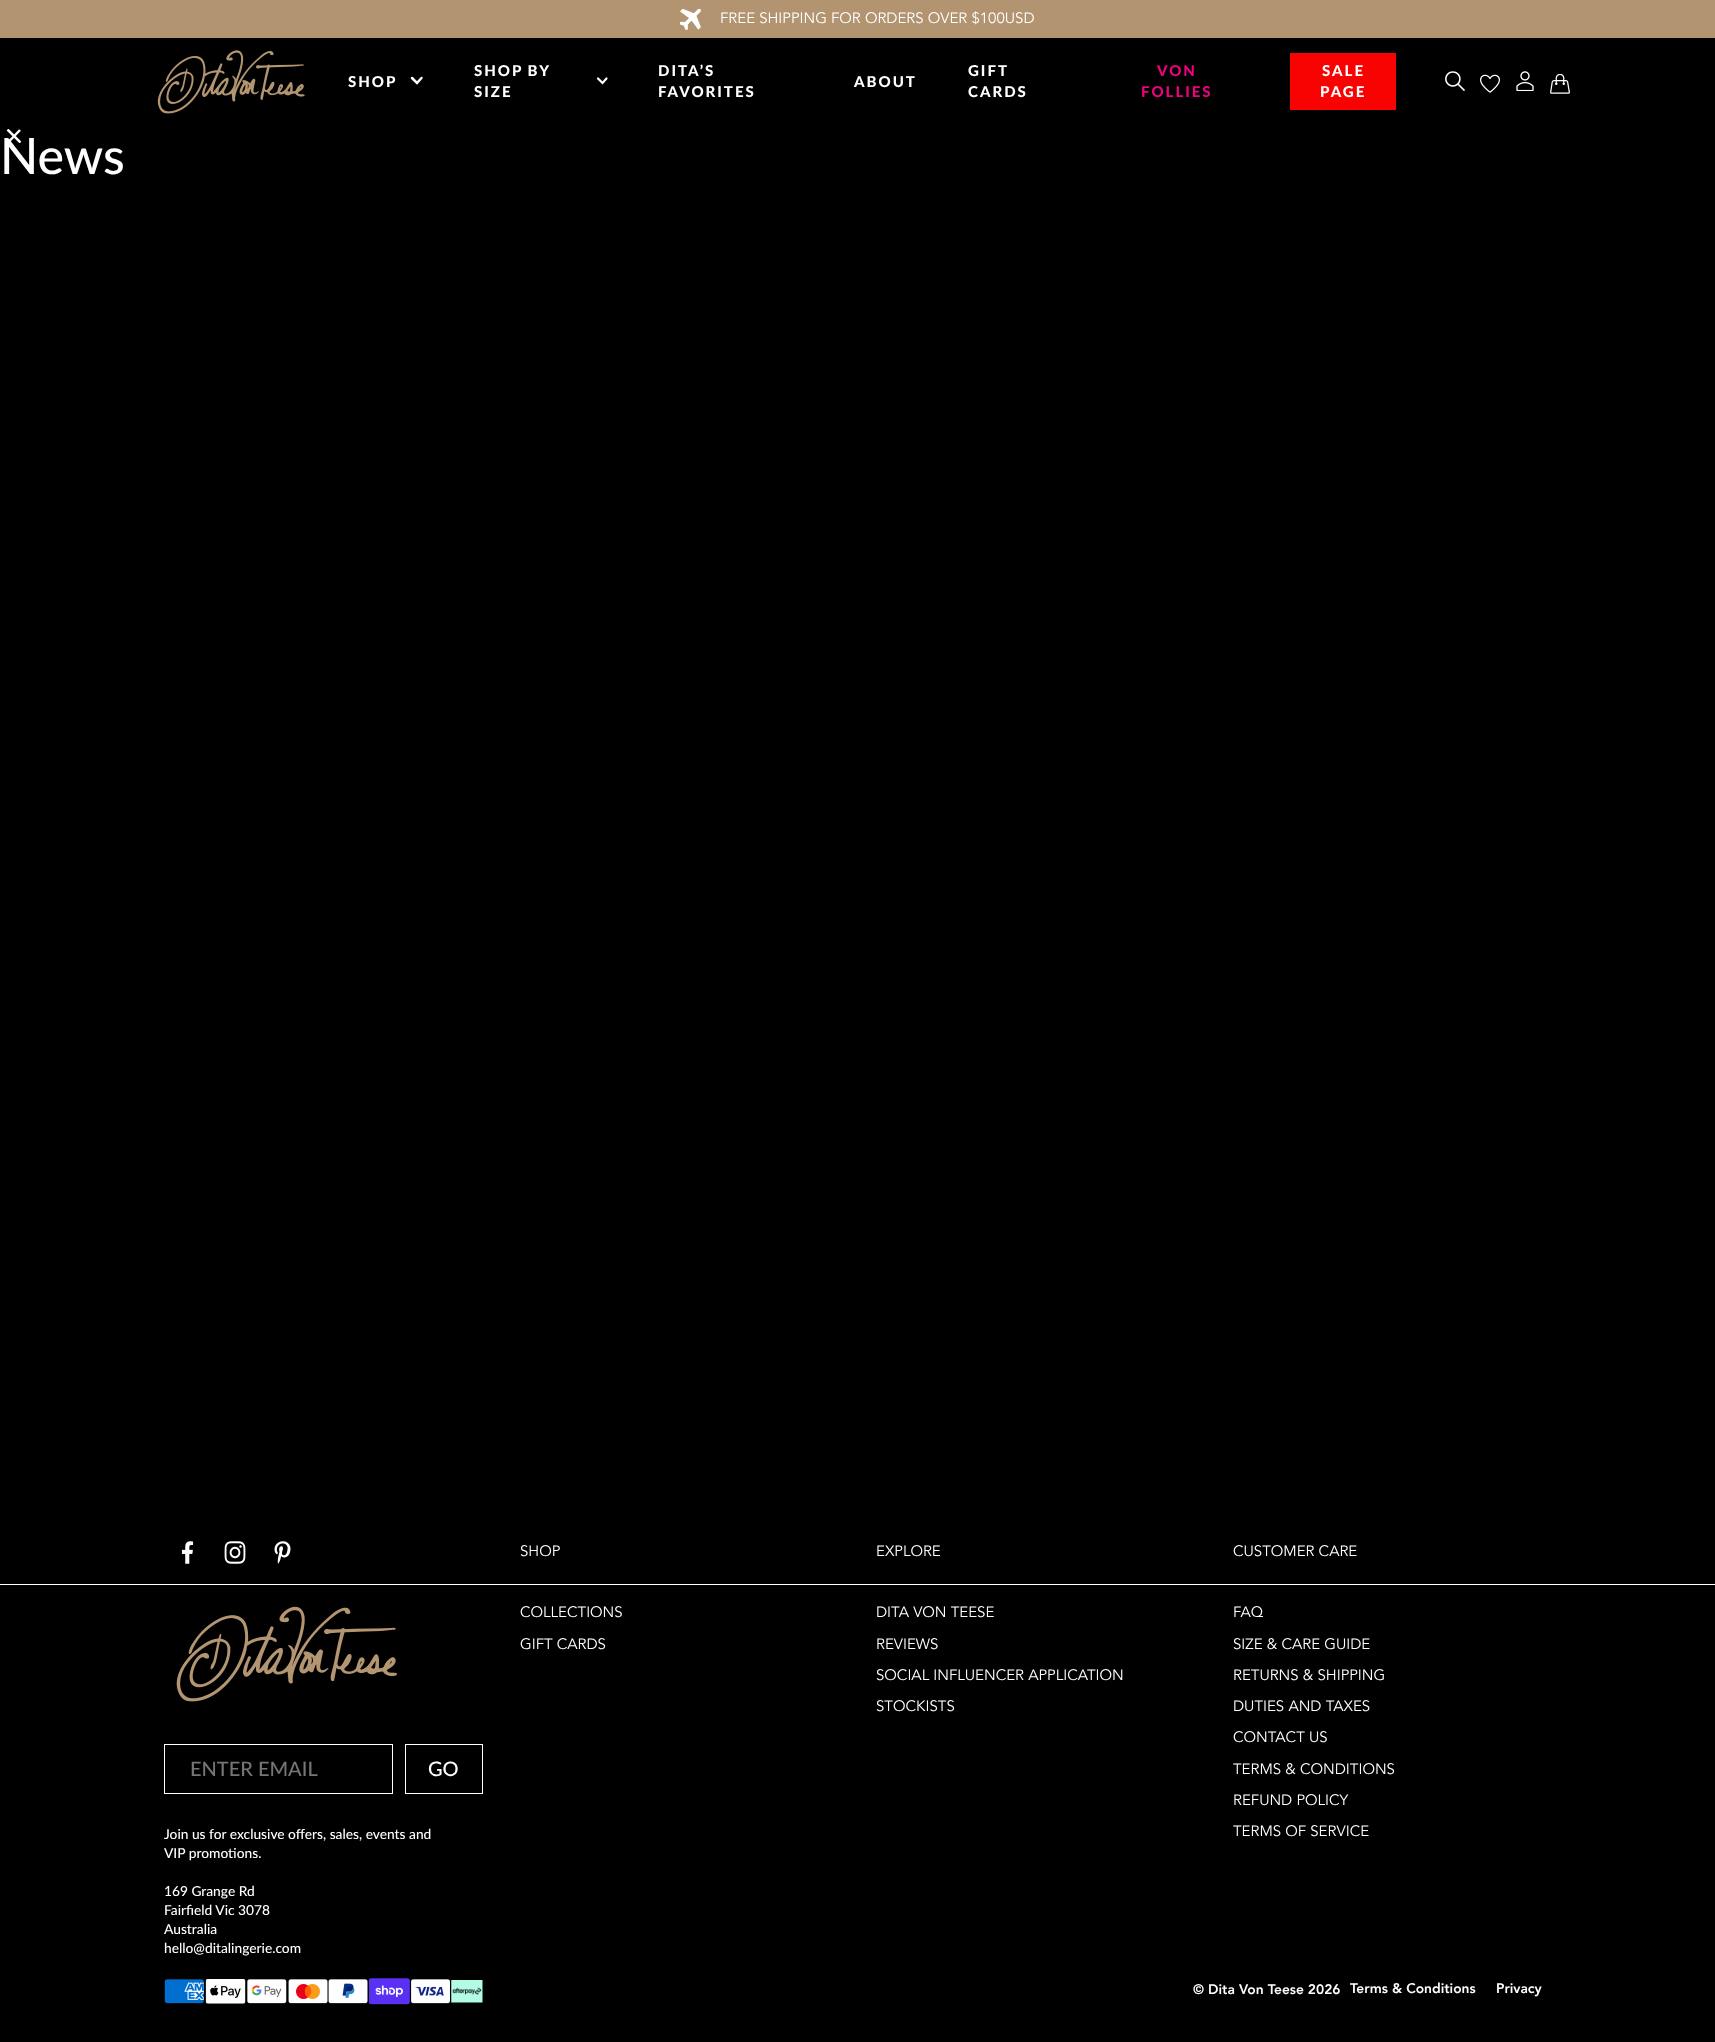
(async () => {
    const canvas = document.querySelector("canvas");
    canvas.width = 1715;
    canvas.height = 2042;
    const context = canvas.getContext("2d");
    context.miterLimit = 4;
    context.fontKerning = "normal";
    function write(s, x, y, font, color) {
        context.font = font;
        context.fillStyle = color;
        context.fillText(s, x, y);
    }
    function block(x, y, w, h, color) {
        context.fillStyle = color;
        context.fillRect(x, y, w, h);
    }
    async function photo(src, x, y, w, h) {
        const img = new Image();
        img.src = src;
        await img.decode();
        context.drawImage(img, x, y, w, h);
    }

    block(0, 0, 1715, 2042, "rgb(0, 0, 0)");
    block(0, 0, 1715, 38, "rgb(179, 148, 113)");
    await photo("media/1.png", 680, 9, 21, 21);
    write("FREE SHIPPING FOR ORDERS OVER $100USD", 720, 23, "15px Avenir", "rgb(255, 255, 255)");
    await photo("media/2.png", 157, 50, 148, 64);
    context.letterSpacing = "2px";
    write("SHOP", 348, 87, "900 15px Lato", "rgb(255, 255, 255)");
    context.beginPath();
    context.moveTo(412, 78);
    context.lineTo(417, 83);
    context.lineTo(421.5, 78);
    context.strokeStyle = "rgb(255, 255, 255)";
    context.lineWidth = 2.5;
    context.lineCap = "round";
    context.stroke();
    context.wordSpacing = "-1px";
    write("SHOP BY", 474, 76, "900 15px Lato", "rgb(255, 255, 255)");
    context.wordSpacing = "0px";
    write("SIZE", 474, 97, "900 15px Lato", "rgb(255, 255, 255)");
    context.beginPath();
    context.moveTo(598, 78.5);
    context.lineTo(602.5, 83);
    context.lineTo(606.5, 78.5);
    context.lineWidth = 2.2;
    context.stroke();
    write("DITA’S", 658, 76, "900 15px Lato", "rgb(255, 255, 255)");
    write("FAVORITES", 658, 97, "900 15px Lato", "rgb(255, 255, 255)");
    write("ABOUT", 854, 87, "900 15px Lato", "rgb(255, 255, 255)");
    write("GIFT", 968, 76, "900 15px Lato", "rgb(255, 255, 255)");
    write("CARDS", 968, 97, "900 15px Lato", "rgb(255, 255, 255)");
    write("VON", 1157, 76, "900 15px Lato", "rgb(237, 1, 128)");
    write("FOLLIES", 1141, 97, "900 15px Lato", "rgb(237, 1, 128)");
    block(1290, 53, 106, 57, "rgb(248, 2, 2)");
    write("SALE", 1322, 76, "900 15px Lato", "rgb(255, 255, 255)");
    write("PAGE", 1320, 97, "900 15px Lato", "rgb(255, 255, 255)");
    await photo("media/3.png", 1445, 71, 20, 20);
    await photo("media/4.png", 1480, 74, 20, 19);
    await photo("media/5.png", 1516, 71, 18, 20);
    await photo("media/6.png", 1550, 74, 20, 20);
    context.beginPath();
    context.moveTo(20, 130);
    context.lineTo(8, 142.5);
    context.lineWidth = 2.5;
    context.lineCap = "butt";
    context.stroke();
    context.save();
    context.beginPath();
    context.rect(6, 129, 15, 14);
    context.clip();
    context.beginPath();
    context.moveTo(20.5, 142.5);
    context.lineTo(7.5, 129.5);
    context.stroke();
    context.restore();
    context.letterSpacing = "0px";
    write("News", 0, 174, "500 50px Lato", "rgb(255, 255, 255)");
    block(0, 1584, 1715, 1, "rgb(255, 255, 255)");
    await photo("media/7.png", 181, 1541, 13, 23);
    await photo("media/8.png", 224, 1541, 22, 23);
    await photo("media/9.png", 274, 1541, 17, 23);
    write("SHOP", 520, 1556, "15px Avenir", "rgb(255, 255, 255)");
    write("EXPLORE", 876, 1556, "15px Avenir", "rgb(255, 255, 255)");
    write("CUSTOMER CARE", 1233, 1556, "15px Avenir", "rgb(255, 255, 255)");
    write("COLLECTIONS", 520, 1617, "15px Avenir", "rgb(255, 255, 255)");
    write("GIFT CARDS", 520, 1649, "15px Avenir", "rgb(255, 255, 255)");
    write("DITA VON TEESE", 876, 1617, "15px Avenir", "rgb(255, 255, 255)");
    write("REVIEWS", 876, 1649, "15px Avenir", "rgb(255, 255, 255)");
    write("SOCIAL INFLUENCER APPLICATION", 876, 1680, "15px Avenir", "rgb(255, 255, 255)");
    write("STOCKISTS", 876, 1711, "15px Avenir", "rgb(255, 255, 255)");
    write("FAQ", 1233, 1617, "15px Avenir", "rgb(255, 255, 255)");
    write("SIZE & CARE GUIDE", 1233, 1649, "15px Avenir", "rgb(255, 255, 255)");
    write("RETURNS & SHIPPING", 1233, 1680, "15px Avenir", "rgb(255, 255, 255)");
    write("DUTIES AND TAXES", 1233, 1711, "15px Avenir", "rgb(255, 255, 255)");
    write("CONTACT US", 1233, 1742, "15px Avenir", "rgb(255, 255, 255)");
    write("TERMS & CONDITIONS", 1233, 1774, "15px Avenir", "rgb(255, 255, 255)");
    write("REFUND POLICY", 1233, 1805, "15px Avenir", "rgb(255, 255, 255)");
    write("TERMS OF SERVICE", 1233, 1836, "15px Avenir", "rgb(255, 255, 255)");
    await photo("media/10.png", 176, 1606, 221, 96);
    context.lineWidth = 1;
    context.strokeRect(164.5, 1744.5, 228, 49);
    write("ENTER EMAIL", 190, 1776, "500 20px Lato", "rgb(117, 117, 117)");
    context.strokeRect(405.5, 1744.5, 77, 49);
    write("GO", 428, 1776, "500 20px Lato", "rgb(255, 255, 255)");
    write("Join us for exclusive offers, sales, events and", 164, 1839, "500 13.75px Lato", "rgb(255, 255, 255)");
    write("VIP promotions.", 164, 1858, "500 13.75px Lato", "rgb(255, 255, 255)");
    write("169 Grange Rd", 164, 1896, "500 13.75px Lato", "rgb(255, 255, 255)");
    write("Fairfield Vic 3078", 164, 1915, "500 13.75px Lato", "rgb(255, 255, 255)");
    write("Australia", 164, 1934, "500 13.75px Lato", "rgb(255, 255, 255)");
    write("hello@ditalingerie.com", 164, 1953, "500 13.75px Lato", "rgb(255, 255, 255)");
    await photo("media/11.png", 164, 1979, 40, 25);
    await photo("media/12.png", 205, 1979, 41, 25);
    await photo("media/13.png", 247, 1979, 40, 25);
    await photo("media/14.png", 288, 1979, 40, 25);
    await photo("media/15.png", 328, 1979, 40, 25);
    await photo("media/16.png", 369, 1978, 41, 27);
    await photo("media/17.png", 411, 1979, 39, 25);
    await photo("media/18.png", 451, 1980, 32, 23);
    write("© Dita Von Teese 2026", 1193, 1994, "900 13.75px Avenir", "rgb(255, 255, 255)");
    write("Terms & Conditions", 1350, 1993, "900 13.75px Avenir", "rgb(255, 255, 255)");
    write("Privacy", 1496, 1993, "900 13.75px Avenir", "rgb(255, 255, 255)");
})();
